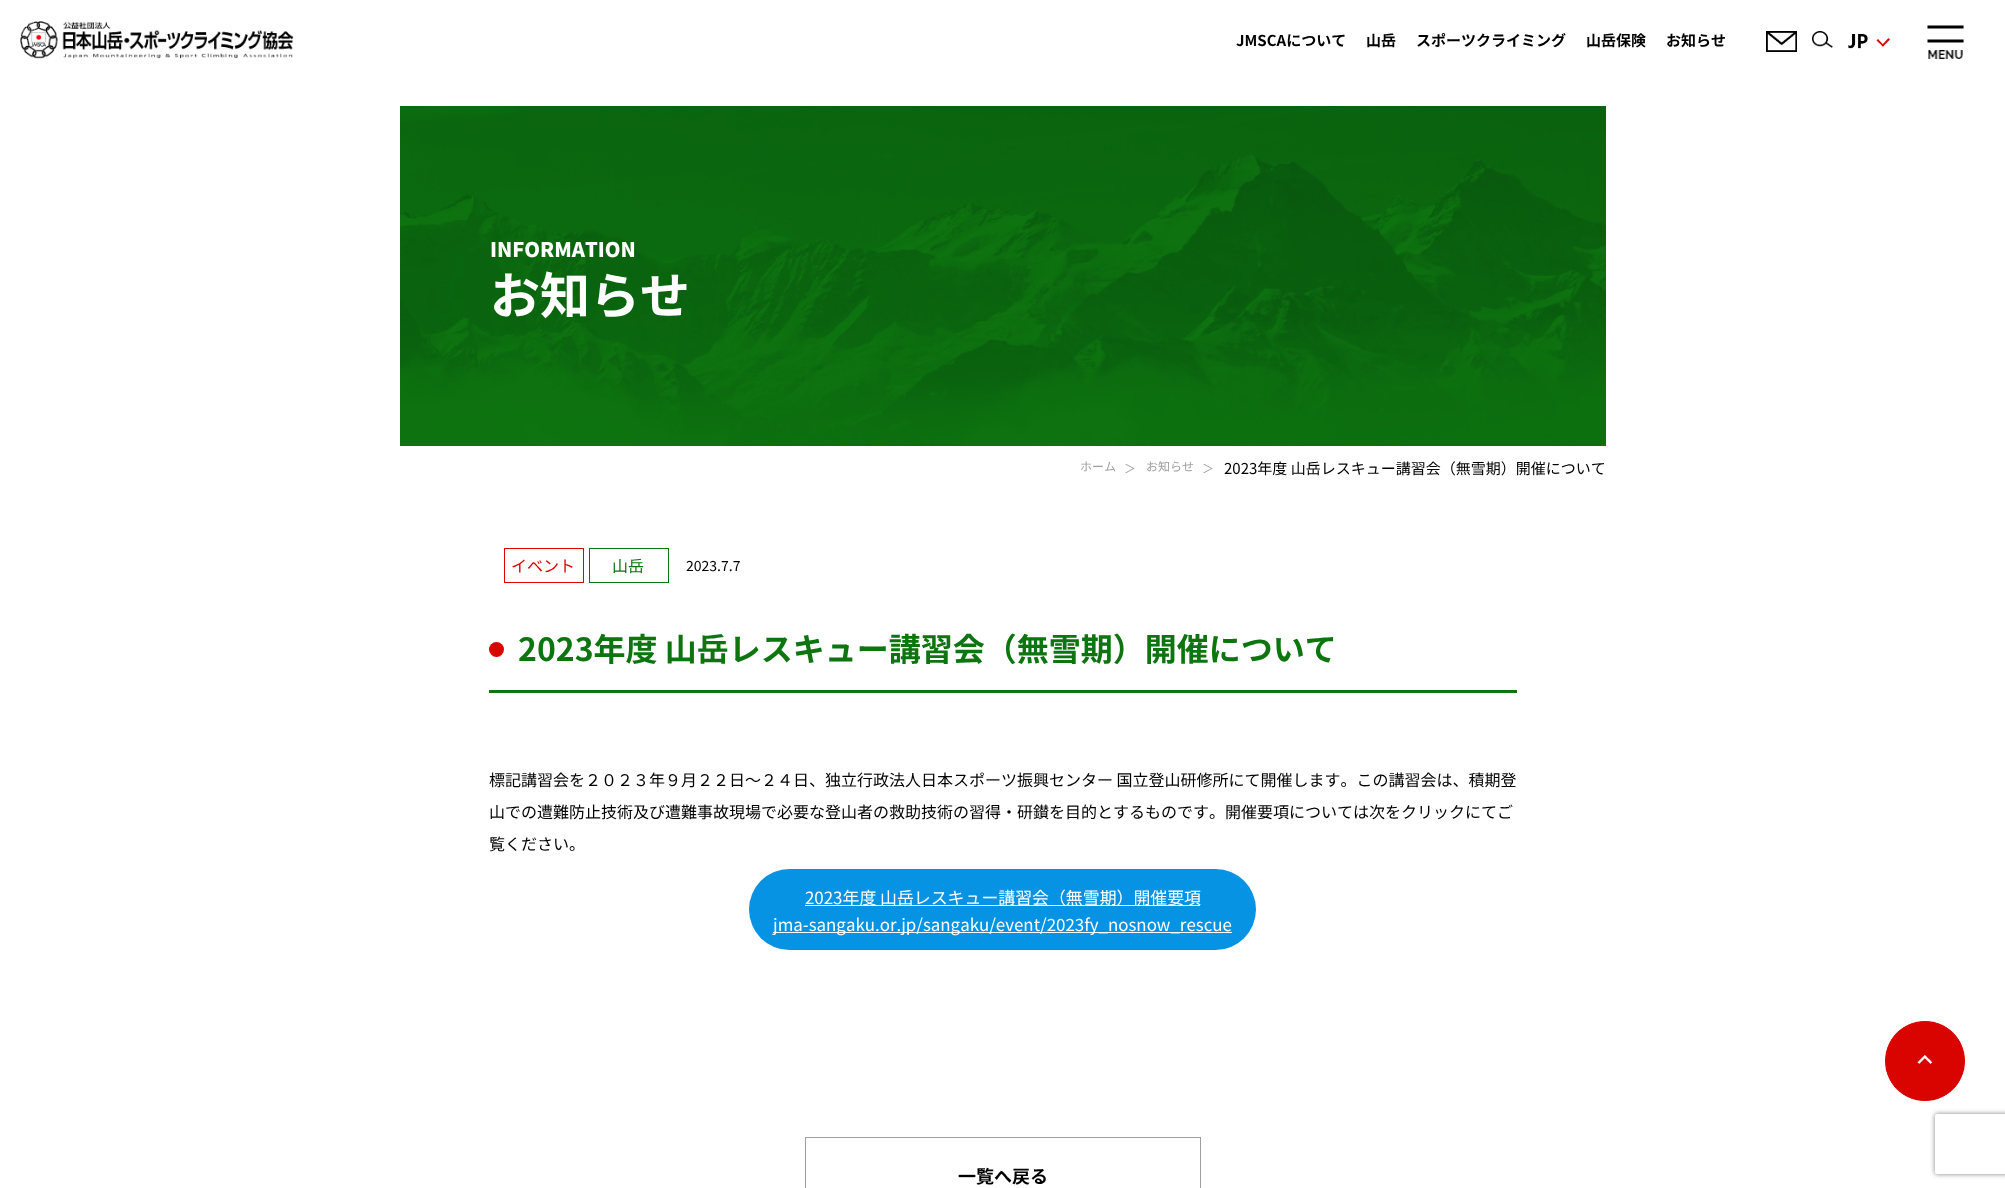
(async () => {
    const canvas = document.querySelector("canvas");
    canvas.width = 2005;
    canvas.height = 1188;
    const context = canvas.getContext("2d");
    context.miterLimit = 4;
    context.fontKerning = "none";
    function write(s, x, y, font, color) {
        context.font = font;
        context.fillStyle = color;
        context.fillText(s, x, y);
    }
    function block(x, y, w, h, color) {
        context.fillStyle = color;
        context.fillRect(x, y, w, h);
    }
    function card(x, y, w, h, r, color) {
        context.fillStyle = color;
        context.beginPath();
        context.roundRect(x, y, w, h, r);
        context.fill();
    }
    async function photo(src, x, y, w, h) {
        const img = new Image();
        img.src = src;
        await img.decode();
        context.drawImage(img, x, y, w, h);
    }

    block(0, 0, 2005, 1188, "rgb(255, 255, 255)");
    await photo("media/1.png", 20, 21, 274, 38);
    write("JMSCAについて", 1236, 46, "bold 15px Noto Sans CJK JP", "rgb(0, 0, 0)");
    write("山岳", 1366, 46, "bold 15px Noto Sans CJK JP", "rgb(0, 0, 0)");
    write("スポーツクライミング", 1416, 46, "bold 15px Noto Sans CJK JP", "rgb(0, 0, 0)");
    write("山岳保険", 1586, 46, "bold 15px Noto Sans CJK JP", "rgb(0, 0, 0)");
    write("お知らせ", 1666, 46, "bold 15px Noto Sans CJK JP", "rgb(0, 0, 0)");
    await photo("media/2.png", 1766, 31, 31, 21);
    await photo("media/3.png", 1812, 31, 21, 17);
    await photo("media/4.png", 1848, 34, 20, 15);
    context.fillStyle = "rgb(217, 3, 0)";
    context.beginPath();
    context.moveTo(1890, 39.5);
    context.lineTo(1883, 46.5);
    context.lineTo(1881.5, 45.5);
    context.lineTo(1888.5, 38);
    context.closePath();
    context.fill();
    context.beginPath();
    context.moveTo(1884, 45.5);
    context.lineTo(1883, 46.5);
    context.lineTo(1876.5, 40.5);
    context.lineTo(1878, 39);
    context.closePath();
    context.fill();
    await photo("media/5.png", 1927, 25, 37, 34);
    await photo("media/6.png", 400, 106, 1206, 340);
    write("INFORMATION", 490, 257, "900 20px Noto Sans CJK JP", "rgb(255, 255, 255)");
    write("お知らせ", 490, 314, "bold 50px Noto Sans CJK JP", "rgb(255, 255, 255)");
    write("ホーム", 1080, 471, "12px Noto Sans CJK JP", "rgb(159, 159, 159)");
    write("＞", 1124, 473, "12px Noto Sans CJK JP", "rgb(159, 159, 159)");
    write("お知らせ", 1146, 471, "12px Noto Sans CJK JP", "rgb(159, 159, 159)");
    write("＞", 1202, 473, "12px Noto Sans CJK JP", "rgb(159, 159, 159)");
    write("2023年度 山岳レスキュー講習会（無雪期）開催について", 1224, 474, "15px Noto Sans CJK JP", "rgb(0, 0, 0)");
    context.strokeStyle = "rgb(217, 3, 0)";
    context.strokeRect(504.5, 548.5, 79, 34);
    write("イベント", 511, 572, "16px Noto Sans CJK JP", "rgb(217, 3, 0)");
    context.strokeStyle = "rgb(13, 117, 15)";
    context.strokeRect(589.5, 548.5, 79, 34);
    write("山岳", 612, 572, "16px Noto Sans CJK JP", "rgb(13, 117, 15)");
    write("2023.7.7", 686, 571, "14px Noto Sans CJK JP", "rgb(0, 0, 0)");
    block(489, 690, 1028, 3, "rgb(13, 117, 15)");
    context.fillStyle = "rgb(217, 3, 0)";
    context.beginPath();
    context.arc(496.5, 649.5, 7.5, 0, Math.PI * 2);
    context.fill();
    write("2023年度 山岳レスキュー講習会（無雪期）開催について", 518, 661, "bold 32px Noto Sans CJK JP", "rgb(13, 117, 15)");
    write("標記講習会を２０２３年９月２２日～２４日、独立行政法人日本スポーツ振興センター 国立登山研修所にて開催します。この講習会は、積期登", 489, 786, "16px Noto Sans CJK JP", "rgb(0, 0, 0)");
    write("山での遭難防止技術及び遭難事故現場で必要な登山者の救助技術の習得・研鑚を目的とするものです。開催要項については次をクリックにてご", 489, 818, "16px Noto Sans CJK JP", "rgb(0, 0, 0)");
    write("覧ください。", 489, 850, "16px Noto Sans CJK JP", "rgb(0, 0, 0)");
    card(749, 869, 507, 81, 40.5, "rgb(6, 147, 227)");
    block(805, 905, 395, 1, "rgb(255, 255, 255)");
    write("2023年度 山岳レスキュー講習会（無雪期）開催要項", 805, 904, "16.9px Noto Sans CJK JP", "rgb(255, 255, 255)");
    block(773, 932, 459, 1, "rgb(255, 255, 255)");
    write("jma-sangaku.or.jp/sangaku/event/2023fy_nosnow_rescue", 773, 931, "16.9px Noto Sans CJK JP", "rgb(255, 255, 255)");
    context.strokeStyle = "rgb(159, 159, 159)";
    context.strokeRect(805.5, 1137.5, 395, 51);
    write("一覧へ戻る", 958, 1183, "bold 18px Noto Sans CJK JP", "rgb(0, 0, 0)");
    await photo("media/7.png", 1885, 1021, 80, 80);
    context.save();
    context.beginPath();
    context.moveTo(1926, 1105);
    context.lineTo(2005, 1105);
    context.lineTo(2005, 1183);
    context.lineTo(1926, 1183);
    context.closePath();
    context.moveTo(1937, 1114);
    context.lineTo(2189, 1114);
    context.bezierCurveTo(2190, 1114, 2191, 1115, 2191, 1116);
    context.lineTo(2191, 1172);
    context.bezierCurveTo(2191, 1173, 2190, 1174, 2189, 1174);
    context.lineTo(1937, 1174);
    context.bezierCurveTo(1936, 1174, 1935, 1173, 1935, 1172);
    context.lineTo(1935, 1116);
    context.bezierCurveTo(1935, 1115, 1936, 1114, 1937, 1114);
    context.closePath();
    context.clip("evenodd");
    context.fillStyle = "rgb(128, 128, 128)";
    context.filter = "blur(2.5px)";
    context.beginPath();
    context.roundRect(1935, 1114, 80, 60, 2);
    context.fill();
    context.filter = "none";
    context.restore();
})();
